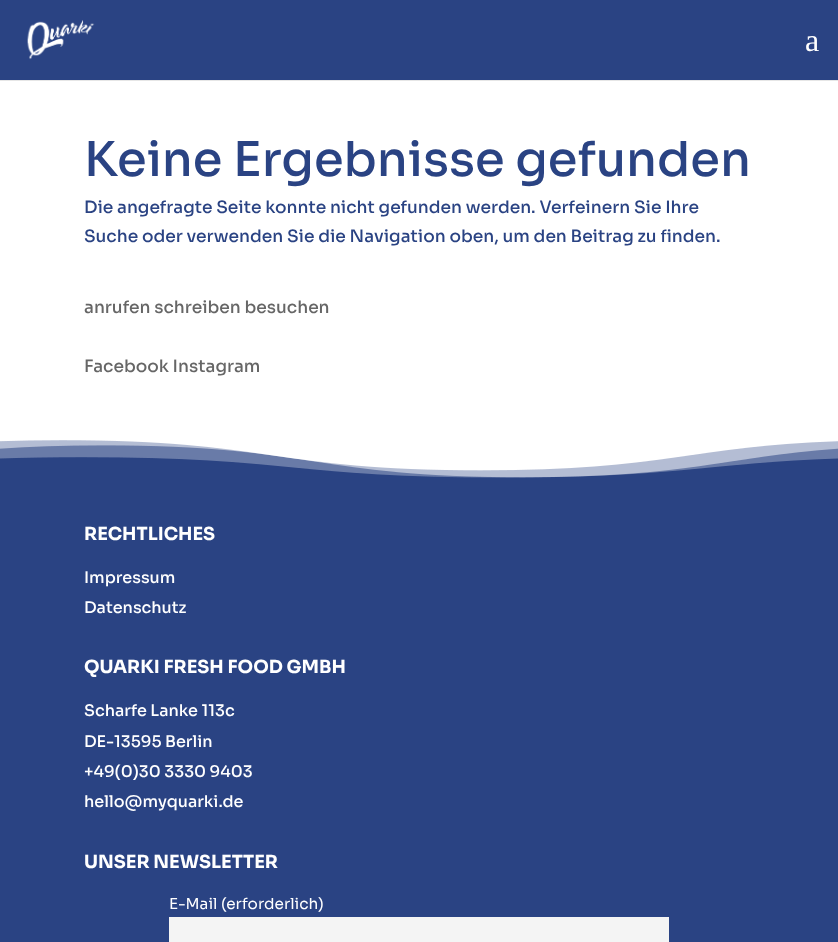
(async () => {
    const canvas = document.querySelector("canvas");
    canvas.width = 838;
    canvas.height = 942;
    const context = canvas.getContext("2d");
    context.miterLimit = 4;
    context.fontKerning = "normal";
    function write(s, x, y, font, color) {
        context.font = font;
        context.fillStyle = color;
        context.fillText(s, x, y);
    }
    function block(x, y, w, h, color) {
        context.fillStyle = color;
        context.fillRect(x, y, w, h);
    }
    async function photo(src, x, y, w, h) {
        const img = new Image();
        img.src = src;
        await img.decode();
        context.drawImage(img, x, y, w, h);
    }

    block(0, 0, 838, 942, "rgb(255, 255, 255)");
    block(0, 80, 838, 1, "rgb(230, 230, 230)");
    block(0, 0, 838, 80, "rgb(42, 67, 131)");
    await photo("media/1.png", 27, 20, 68, 40);
    write("a", 805, 51, "32px Liberation Serif", "rgb(255, 255, 255)");
    write("Keine Ergebnisse gefunden", 84, 176, "500 48px Sora", "rgb(42, 67, 131)");
    write("Die angefragte Seite konnte nicht gefunden werden. Verfeinern Sie Ihre", 84, 213, "500 17px Sora", "rgb(42, 67, 131)");
    write("Suche oder verwenden Sie die Navigation oben, um den Beitrag zu finden.", 84, 242, "500 17px Sora", "rgb(42, 67, 131)");
    write("anrufen schreiben besuchen", 84, 313, "500 17px Sora", "rgb(102, 102, 102)");
    write("Facebook Instagram", 84, 372, "500 17px Sora", "rgb(102, 102, 102)");
    block(0, 440, 838, 502, "rgb(42, 67, 131)");
    await photo("media/2.png", 0, 440, 838, 38);
    write("RECHTLICHES", 84, 540, "bold 18px Sora", "rgb(255, 255, 255)");
    write("Impressum", 84, 583, "500 16px Sora", "rgb(255, 255, 255)");
    write("Datenschutz", 84, 613, "500 16px Sora", "rgb(255, 255, 255)");
    write("QUARKI FRESH FOOD GMBH", 84, 673, "bold 18px Sora", "rgb(255, 255, 255)");
    write("Scharfe Lanke 113c", 84, 716, "500 16px Sora", "rgb(255, 255, 255)");
    write("DE-13595 Berlin", 84, 747, "500 16px Sora", "rgb(255, 255, 255)");
    write("+49(0)30 3330 9403", 84, 777, "500 16px Sora", "rgb(255, 255, 255)");
    write("hello@myquarki.de", 84, 807, "500 16px Sora", "rgb(255, 255, 255)");
    write("UNSER NEWSLETTER", 84, 868, "bold 18px Sora", "rgb(255, 255, 255)");
    write("E-Mail (erforderlich)", 169, 909, "15.25px Sora", "rgb(255, 255, 255)");
    block(169, 917, 500, 25, "rgb(244, 244, 244)");
})();
